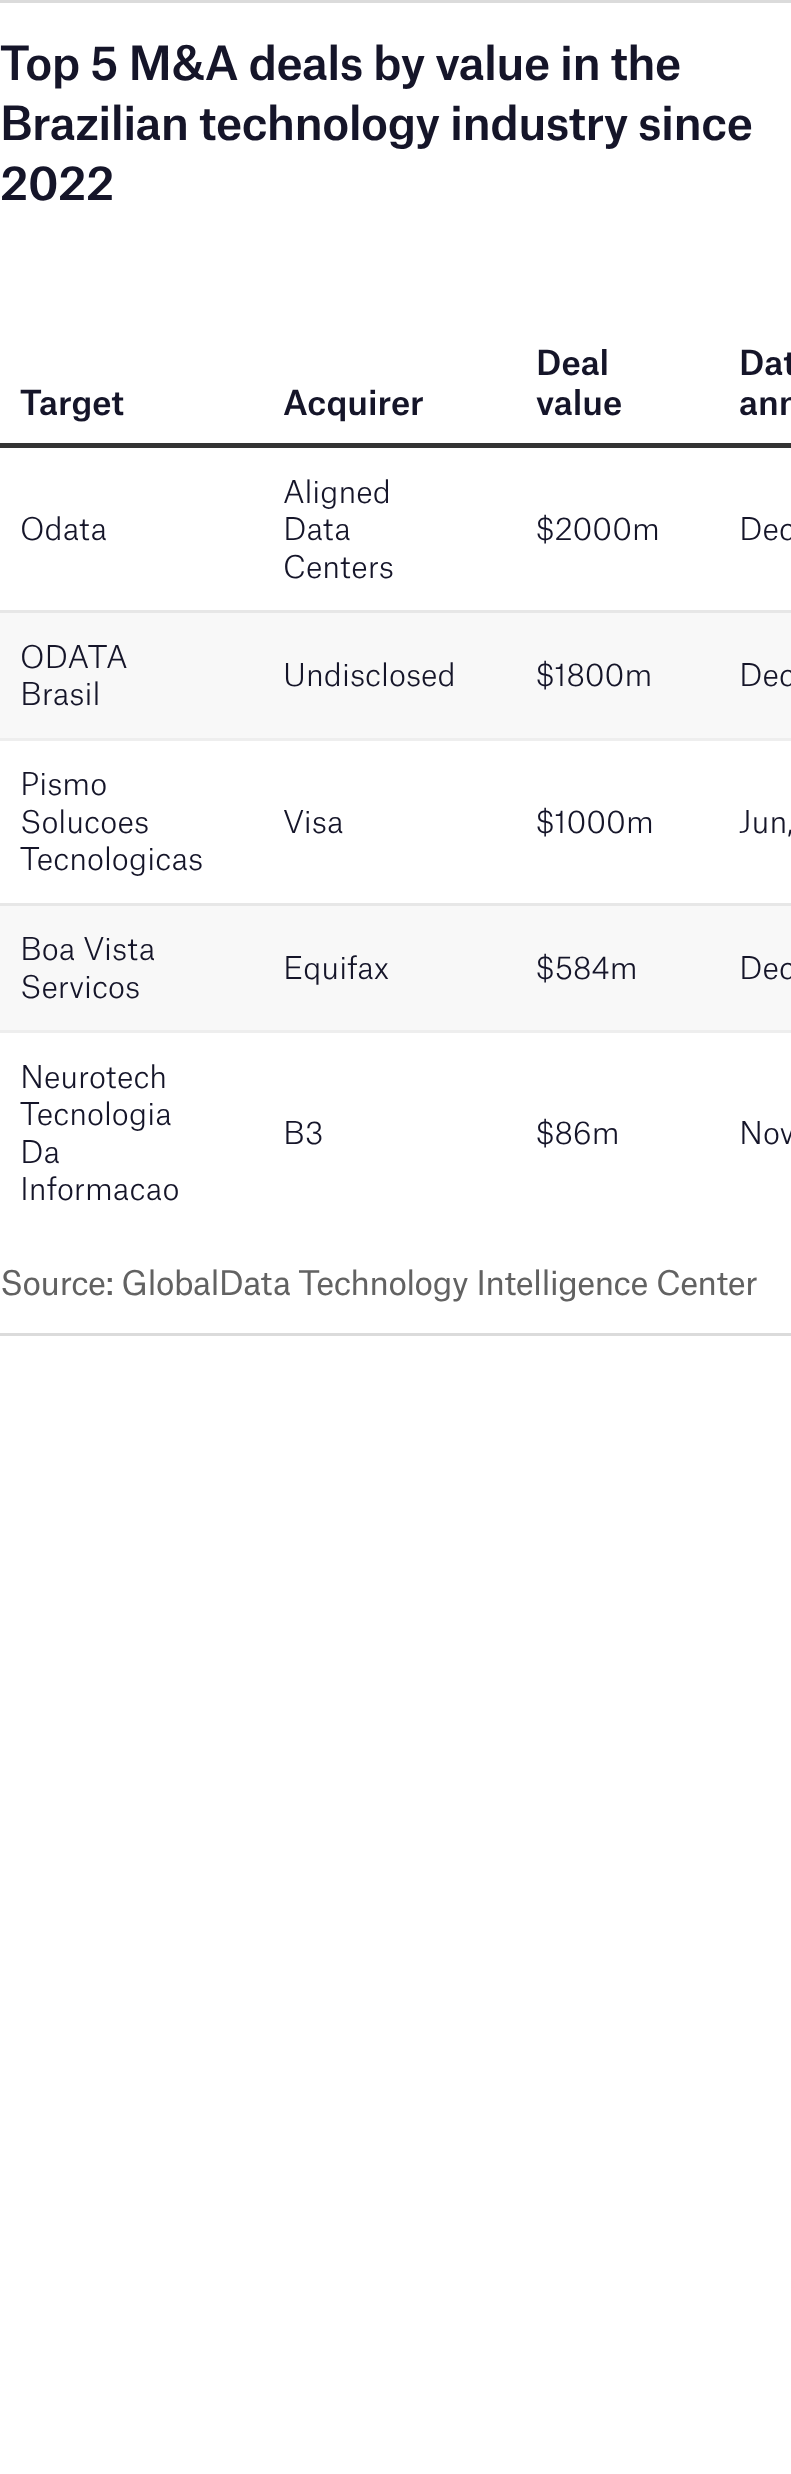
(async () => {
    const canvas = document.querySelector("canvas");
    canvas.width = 791;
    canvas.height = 2474;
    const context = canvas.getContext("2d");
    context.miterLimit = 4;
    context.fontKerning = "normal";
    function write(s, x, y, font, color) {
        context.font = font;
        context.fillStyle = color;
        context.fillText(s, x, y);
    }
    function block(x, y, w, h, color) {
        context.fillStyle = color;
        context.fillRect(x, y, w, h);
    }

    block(0, 0, 791, 2474, "rgb(255, 255, 255)");
    block(0, 0, 791, 3, "rgb(219, 219, 219)");
    block(0, 1333, 791, 3, "rgb(219, 219, 219)");
    context.letterSpacing = "-0.6px";
    write("Top 5 M&A deals by value in the", 0, 80, "500 45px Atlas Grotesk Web", "rgb(21, 21, 41)");
    write("Brazilian technology industry since", 0, 140, "500 45px Atlas Grotesk Web", "rgb(21, 21, 41)");
    write("2022", 0, 200, "500 45px Atlas Grotesk Web", "rgb(21, 21, 41)");
    block(0, 443, 791, 5, "rgb(51, 51, 51)");
    context.letterSpacing = "0px";
    write("Target", 20, 415, "500 33px Atlas Grotesk Web", "rgb(21, 21, 41)");
    write("Acquirer", 283, 415, "500 33px Atlas Grotesk Web", "rgb(21, 21, 41)");
    write("Deal", 536, 375, "500 33px Atlas Grotesk Web", "rgb(21, 21, 41)");
    write("value", 536, 415, "500 33px Atlas Grotesk Web", "rgb(21, 21, 41)");
    write("Dat", 739, 375, "500 33px Atlas Grotesk Web", "rgb(21, 21, 41)");
    write("ann", 739, 415, "500 33px Atlas Grotesk Web", "rgb(21, 21, 41)");
    write("Odata", 20, 540, "300 30px Atlas Grotesk Web", "rgb(21, 21, 41)");
    write("Aligned", 283, 503, "300 30px Atlas Grotesk Web", "rgb(21, 21, 41)");
    write("Data", 283, 540, "300 30px Atlas Grotesk Web", "rgb(21, 21, 41)");
    write("Centers", 283, 578, "300 30px Atlas Grotesk Web", "rgb(21, 21, 41)");
    write("$2000m", 536, 540, "300 30px Atlas Grotesk Web", "rgb(21, 21, 41)");
    write("Dec", 739, 540, "300 30px Atlas Grotesk Web", "rgb(21, 21, 41)");
    block(0, 613, 791, 125, "rgb(248, 248, 248)");
    block(0, 610, 791, 3, "rgb(231, 231, 231)");
    write("ODATA", 20, 668, "300 30px Atlas Grotesk Web", "rgb(21, 21, 41)");
    write("Brasil", 20, 705, "300 30px Atlas Grotesk Web", "rgb(21, 21, 41)");
    write("Undisclosed", 283, 686, "300 30px Atlas Grotesk Web", "rgb(21, 21, 41)");
    write("$1800m", 536, 686, "300 30px Atlas Grotesk Web", "rgb(21, 21, 41)");
    write("Dec", 739, 686, "300 30px Atlas Grotesk Web", "rgb(21, 21, 41)");
    block(0, 738, 791, 3, "rgb(238, 238, 238)");
    write("Pismo", 20, 795, "300 30px Atlas Grotesk Web", "rgb(21, 21, 41)");
    write("Solucoes", 20, 833, "300 30px Atlas Grotesk Web", "rgb(21, 21, 41)");
    write("Tecnologicas", 20, 870, "300 30px Atlas Grotesk Web", "rgb(21, 21, 41)");
    write("Visa", 283, 833, "300 30px Atlas Grotesk Web", "rgb(21, 21, 41)");
    write("$1000m", 536, 833, "300 30px Atlas Grotesk Web", "rgb(21, 21, 41)");
    write("Jun,", 739, 833, "300 30px Atlas Grotesk Web", "rgb(21, 21, 41)");
    block(0, 906, 791, 124, "rgb(248, 248, 248)");
    block(0, 903, 791, 3, "rgb(231, 231, 231)");
    write("Boa Vista", 20, 960, "300 30px Atlas Grotesk Web", "rgb(21, 21, 41)");
    write("Servicos", 20, 998, "300 30px Atlas Grotesk Web", "rgb(21, 21, 41)");
    write("Equifax", 283, 979, "300 30px Atlas Grotesk Web", "rgb(21, 21, 41)");
    write("$584m", 536, 979, "300 30px Atlas Grotesk Web", "rgb(21, 21, 41)");
    write("Dec", 739, 979, "300 30px Atlas Grotesk Web", "rgb(21, 21, 41)");
    block(0, 1030, 791, 3, "rgb(238, 238, 238)");
    write("Neurotech", 20, 1088, "300 30px Atlas Grotesk Web", "rgb(21, 21, 41)");
    write("Tecnologia", 20, 1125, "300 30px Atlas Grotesk Web", "rgb(21, 21, 41)");
    write("Da", 20, 1163, "300 30px Atlas Grotesk Web", "rgb(21, 21, 41)");
    write("Informacao", 20, 1200, "300 30px Atlas Grotesk Web", "rgb(21, 21, 41)");
    write("B3", 283, 1144, "300 30px Atlas Grotesk Web", "rgb(21, 21, 41)");
    write("$86m", 536, 1144, "300 30px Atlas Grotesk Web", "rgb(21, 21, 41)");
    write("Nov", 739, 1144, "300 30px Atlas Grotesk Web", "rgb(21, 21, 41)");
    context.letterSpacing = "-0.65px";
    write("Source: GlobalData Technology Intelligence Center", 0, 1295, "32.5px Atlas Grotesk Web", "rgb(98, 98, 98)");
})();
